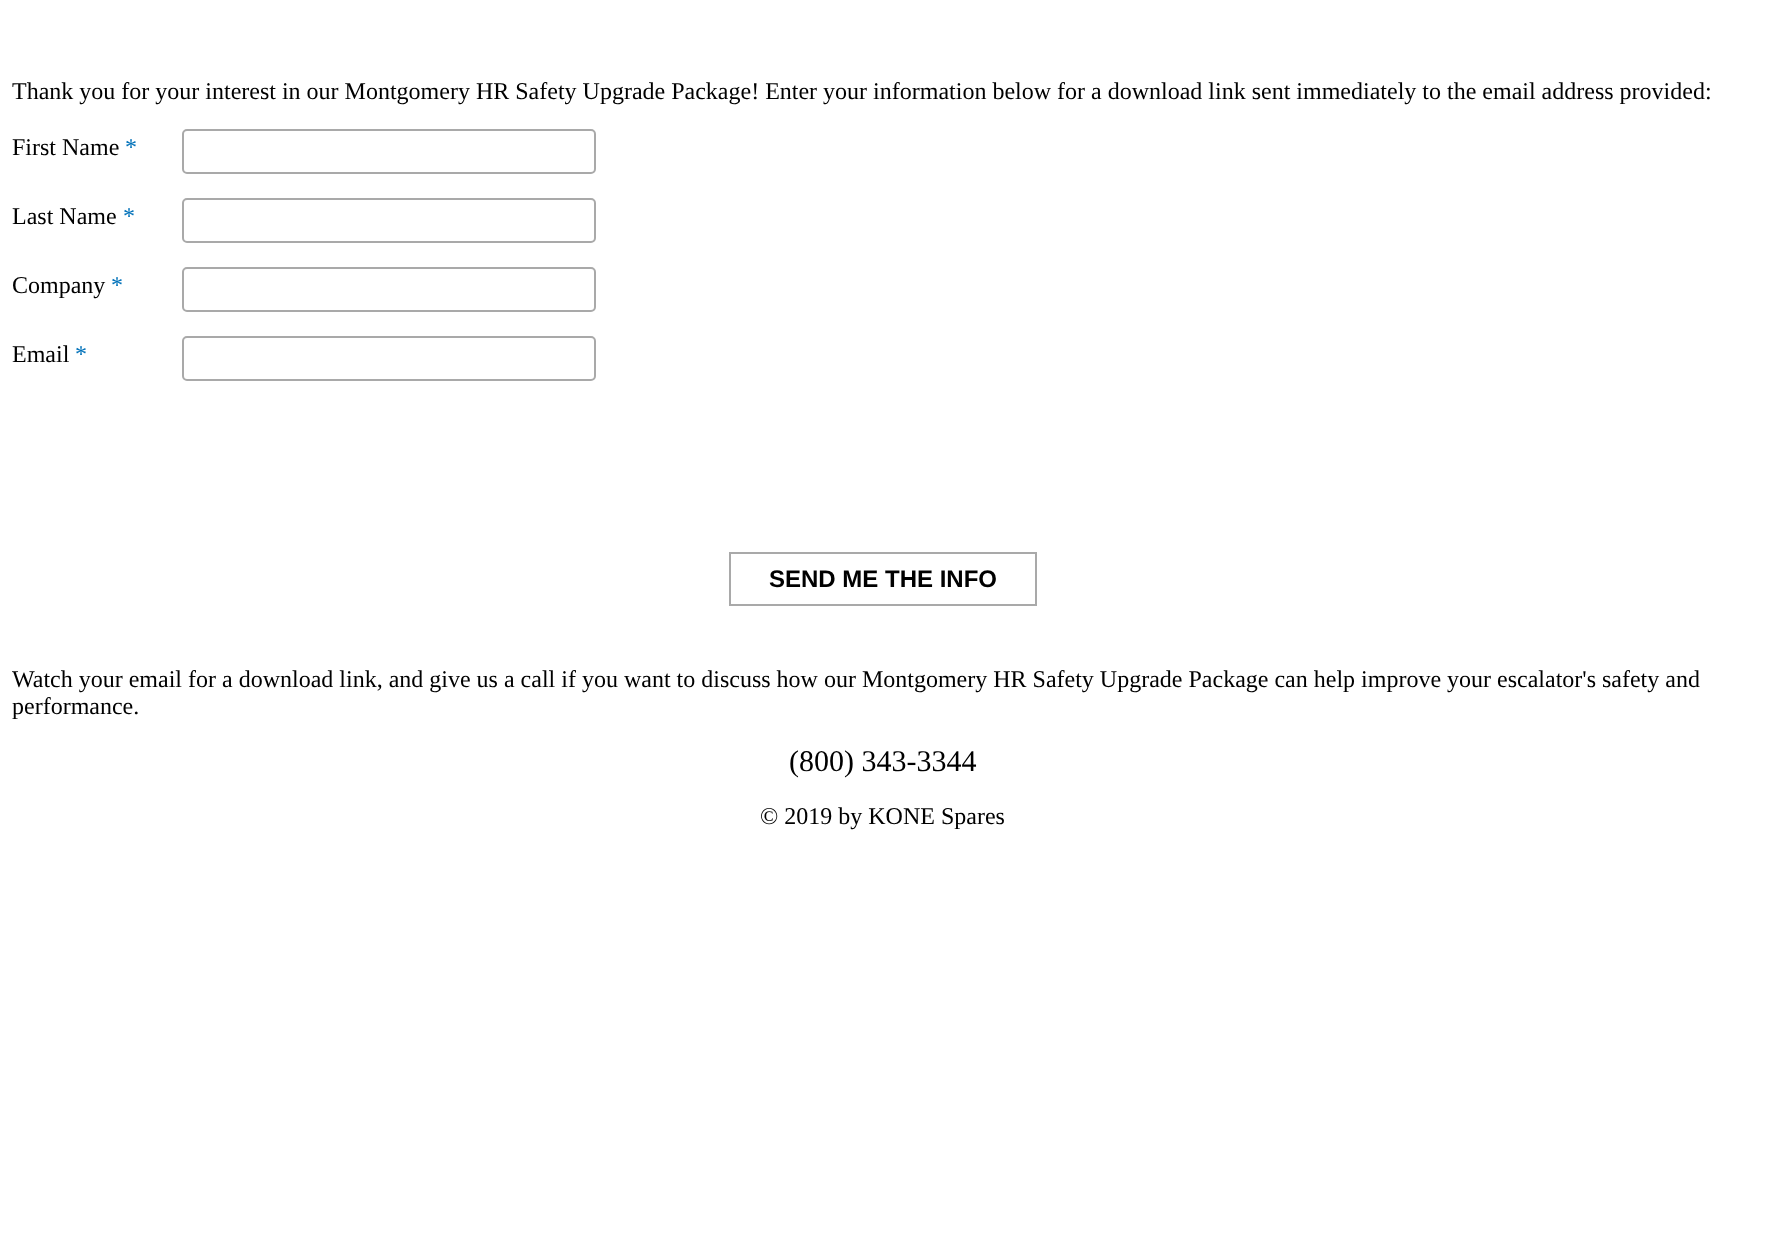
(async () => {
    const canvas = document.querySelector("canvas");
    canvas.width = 1765;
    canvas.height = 1242;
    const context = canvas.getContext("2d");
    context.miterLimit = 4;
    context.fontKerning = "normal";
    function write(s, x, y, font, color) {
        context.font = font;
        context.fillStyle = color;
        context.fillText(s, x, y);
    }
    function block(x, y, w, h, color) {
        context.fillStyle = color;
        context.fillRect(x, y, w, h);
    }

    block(0, 0, 1765, 1242, "rgb(255, 255, 255)");
    write("Thank you for your interest in our Montgomery HR Safety Upgrade Package! Enter your information below for a download link sent immediately to the email address provided:", 12, 99, "24px Liberation Serif", "rgb(0, 0, 0)");
    write("First Name", 12, 155, "24px Liberation Serif", "rgb(0, 0, 0)");
    write("*", 125, 155, "24px Liberation Serif", "rgb(0, 113, 185)");
    context.beginPath();
    context.roundRect(183, 130, 412, 43, 4);
    context.strokeStyle = "rgb(169, 169, 169)";
    context.lineWidth = 2;
    context.stroke();
    write("Last Name", 12, 224, "24px Liberation Serif", "rgb(0, 0, 0)");
    write("*", 123, 224, "24px Liberation Serif", "rgb(0, 113, 185)");
    context.beginPath();
    context.roundRect(183, 199, 412, 43, 4);
    context.stroke();
    write("Company", 12, 293, "24px Liberation Serif", "rgb(0, 0, 0)");
    write("*", 111, 293, "24px Liberation Serif", "rgb(0, 113, 185)");
    context.beginPath();
    context.roundRect(183, 268, 412, 43, 4);
    context.stroke();
    write("Email", 12, 362, "24px Liberation Serif", "rgb(0, 0, 0)");
    write("*", 75, 362, "24px Liberation Serif", "rgb(0, 113, 185)");
    context.beginPath();
    context.roundRect(183, 337, 412, 43, 4);
    context.stroke();
    context.strokeRect(730, 553, 306, 52);
    write("SEND ME THE INFO", 769, 587, "bold 24px Liberation Sans", "rgb(0, 0, 0)");
    write("Watch your email for a download link, and give us a call if you want to discuss how our Montgomery HR Safety Upgrade Package can help improve your escalator's safety and", 12, 687, "24px Liberation Serif", "rgb(0, 0, 0)");
    write("performance.", 12, 714, "24px Liberation Serif", "rgb(0, 0, 0)");
    write("(800) 343-3344", 789, 771, "30px Liberation Serif", "rgb(0, 0, 0)");
    write("© 2019 by KONE Spares", 760, 824, "24px Liberation Serif", "rgb(0, 0, 0)");
})();
